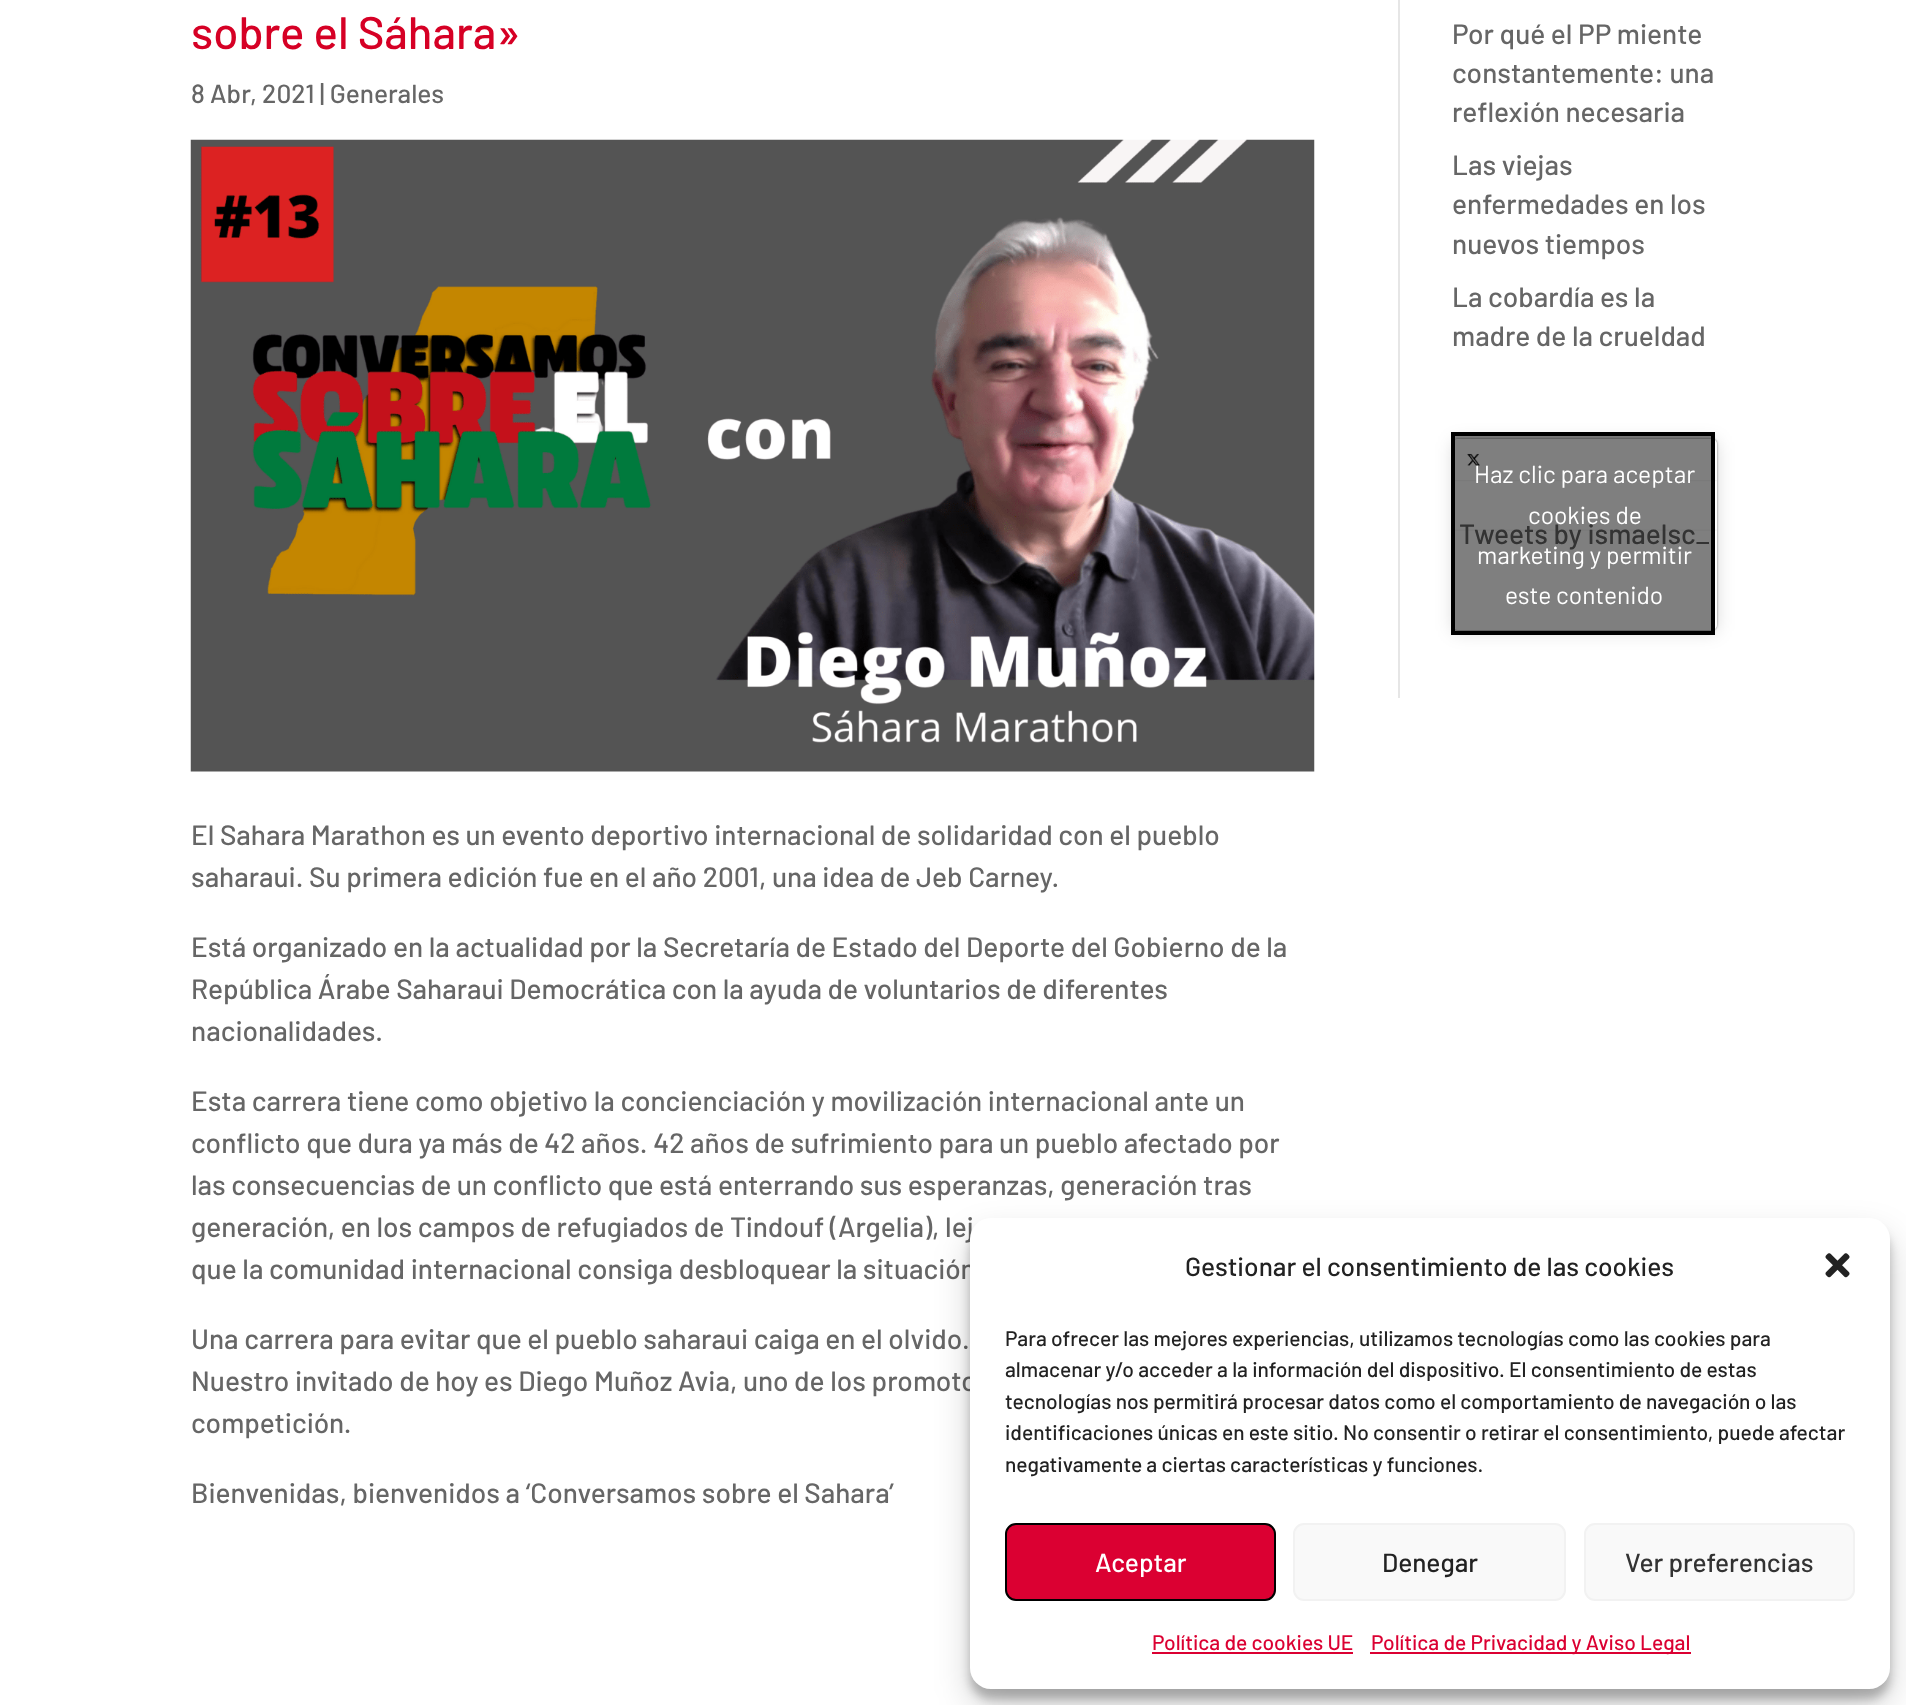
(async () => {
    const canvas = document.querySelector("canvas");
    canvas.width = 1906;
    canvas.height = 1705;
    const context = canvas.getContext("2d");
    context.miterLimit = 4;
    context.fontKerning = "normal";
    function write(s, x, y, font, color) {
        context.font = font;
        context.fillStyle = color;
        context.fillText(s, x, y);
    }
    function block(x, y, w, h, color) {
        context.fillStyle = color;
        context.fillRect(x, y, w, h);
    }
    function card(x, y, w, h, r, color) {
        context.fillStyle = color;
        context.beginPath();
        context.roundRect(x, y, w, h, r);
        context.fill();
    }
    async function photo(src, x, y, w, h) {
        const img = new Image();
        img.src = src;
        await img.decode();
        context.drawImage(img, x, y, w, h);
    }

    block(0, 0, 1906, 1705, "rgb(255, 255, 255)");
    write("sobre el Sáhara»", 191, 49, "500 45.5px Barlow", "rgb(214, 0, 37)");
    write("8 Abr, 2021 | Generales", 191, 103, "500 26.25px Barlow", "rgb(102, 102, 102)");
    await photo("media/1.png", 190, 139, 1125, 633);
    write("El Sahara Marathon es un evento deportivo internacional de solidaridad con el pueblo", 191, 845, "500 28px Barlow", "rgb(102, 102, 102)");
    write("saharaui. Su primera edición fue en el año 2001, una idea de Jeb Carney.", 191, 887, "500 28px Barlow", "rgb(102, 102, 102)");
    write("Está organizado en la actualidad por la Secretaría de Estado del Deporte del Gobierno de la", 191, 957, "500 28px Barlow", "rgb(102, 102, 102)");
    write("República Árabe Saharaui Democrática con la ayuda de voluntarios de diferentes", 191, 999, "500 28px Barlow", "rgb(102, 102, 102)");
    write("nacionalidades.", 191, 1041, "500 28px Barlow", "rgb(102, 102, 102)");
    write("Esta carrera tiene como objetivo la concienciación y movilización internacional ante un", 191, 1111, "500 28px Barlow", "rgb(102, 102, 102)");
    write("conflicto que dura ya más de 42 años. 42 años de sufrimiento para un pueblo afectado por", 191, 1153, "500 28px Barlow", "rgb(102, 102, 102)");
    write("las consecuencias de un conflicto que está enterrando sus esperanzas, generación tras", 191, 1195, "500 28px Barlow", "rgb(102, 102, 102)");
    write("generación, en los campos de refugiados de Tindouf (Argelia), lej", 191, 1237, "500 28px Barlow", "rgb(102, 102, 102)");
    write("que la comunidad internacional consiga desbloquear la situación", 191, 1279, "500 28px Barlow", "rgb(102, 102, 102)");
    write("Una carrera para evitar que el pueblo saharaui caiga en el olvido.", 191, 1349, "500 28px Barlow", "rgb(102, 102, 102)");
    write("Nuestro invitado de hoy es Diego Muñoz Avia, uno de los promoto", 191, 1391, "500 28px Barlow", "rgb(102, 102, 102)");
    write("competición.", 191, 1433, "500 28px Barlow", "rgb(102, 102, 102)");
    write("Bienvenidas, bienvenidos a ‘Conversamos sobre el Sahara’", 191, 1503, "500 28px Barlow", "rgb(102, 102, 102)");
    block(1398, 0, 2, 698, "rgb(230, 230, 230)");
    write("Por qué el PP miente", 1452, 44, "500 28px Barlow", "rgb(102, 102, 102)");
    write("constantemente: una", 1452, 83, "500 28px Barlow", "rgb(102, 102, 102)");
    write("reflexión necesaria", 1452, 122, "500 28px Barlow", "rgb(102, 102, 102)");
    write("Las viejas", 1452, 175, "500 28px Barlow", "rgb(102, 102, 102)");
    write("enfermedades en los", 1452, 214, "500 28px Barlow", "rgb(102, 102, 102)");
    write("nuevos tiempos", 1452, 254, "500 28px Barlow", "rgb(102, 102, 102)");
    write("La cobardía es la", 1452, 307, "500 28px Barlow", "rgb(102, 102, 102)");
    write("madre de la crueldad", 1452, 346, "500 28px Barlow", "rgb(102, 102, 102)");
    context.fillStyle = "rgba(0, 0, 0, 0.15)";
    context.filter = "blur(9px)";
    context.beginPath();
    context.roundRect(1453, 441, 264, 191, 5);
    context.fill();
    context.filter = "none";
    context.fillStyle = "rgba(0, 0, 0, 0.5)";
    context.filter = "blur(1px)";
    context.beginPath();
    context.roundRect(1453, 439, 264, 191, 5);
    context.fill();
    context.filter = "none";
    card(1453, 439, 264, 191, 5, "rgb(255, 255, 255)");
    await photo("media/2.png", 1455, 439, 262, 191);
    write("Tweets by ismaelsc_", 1459, 544, "500 28px Barlow", "rgb(102, 102, 102)");
    context.fillStyle = "rgba(0, 0, 0, 0.5)";
    context.beginPath();
    context.rect(1453, 434, 260, 199);
    context.fill();
    context.strokeStyle = "rgb(0, 0, 0)";
    context.lineWidth = 4;
    context.stroke();
    write("Haz clic para aceptar", 1474, 483, "24.5px Barlow", "rgb(255, 255, 255)");
    write("cookies de", 1528, 524, "24.5px Barlow", "rgb(255, 255, 255)");
    write("marketing y permitir", 1477, 564, "24.5px Barlow", "rgb(255, 255, 255)");
    write("este contenido", 1505, 604, "24.5px Barlow", "rgb(255, 255, 255)");
    context.fillStyle = "rgba(0, 0, 0, 0.23)";
    context.filter = "blur(5px)";
    context.beginPath();
    context.roundRect(970, 1229, 920, 470, 21);
    context.fill();
    context.filter = "none";
    context.fillStyle = "rgba(0, 0, 0, 0.19)";
    context.filter = "blur(17.5px)";
    context.beginPath();
    context.roundRect(970, 1236, 920, 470, 21);
    context.fill();
    context.filter = "none";
    card(970, 1218, 920, 471, 21, "rgb(255, 255, 255)");
    write("Gestionar el consentimiento de las cookies", 1185, 1276, "500 26.25px Barlow", "rgb(34, 34, 34)");
    await photo("media/3.png", 1825, 1253, 25, 25);
    write("Para ofrecer las mejores experiencias, utilizamos tecnologías como las cookies para", 1005, 1346, "500 21px Barlow", "rgb(34, 34, 34)");
    write("almacenar y/o acceder a la información del dispositivo. El consentimiento de estas", 1005, 1377, "500 21px Barlow", "rgb(34, 34, 34)");
    write("tecnologías nos permitirá procesar datos como el comportamiento de navegación o las", 1005, 1409, "500 21px Barlow", "rgb(34, 34, 34)");
    write("identificaciones únicas en este sitio. No consentir o retirar el consentimiento, puede afectar", 1005, 1440, "500 21px Barlow", "rgb(34, 34, 34)");
    write("negativamente a ciertas características y funciones.", 1005, 1472, "500 21px Barlow", "rgb(34, 34, 34)");
    context.fillStyle = "rgb(219, 0, 50)";
    context.beginPath();
    context.roundRect(1006, 1524, 269, 76, 10);
    context.fill();
    context.lineWidth = 2;
    context.stroke();
    write("Aceptar", 1095, 1572, "500 26.25px Barlow", "rgb(255, 255, 255)");
    context.fillStyle = "rgb(249, 249, 249)";
    context.beginPath();
    context.roundRect(1294, 1524, 271, 76, 10);
    context.fill();
    context.strokeStyle = "rgb(242, 242, 242)";
    context.stroke();
    write("Denegar", 1382, 1572, "500 26.25px Barlow", "rgb(34, 34, 34)");
    context.fillStyle = "rgb(249, 249, 249)";
    context.beginPath();
    context.roundRect(1585, 1524, 269, 76, 10);
    context.fill();
    context.stroke();
    write("Ver preferencias", 1625, 1572, "500 26.25px Barlow", "rgb(51, 51, 51)");
    write("Política de cookies UE", 1152, 1650, "500 21px Barlow", "rgb(219, 0, 50)");
    block(1152, 1652, 201, 2, "rgb(219, 0, 50)");
    block(1370, 1652, 321, 2, "rgb(219, 0, 50)");
    write("Política de Privacidad y Aviso Legal", 1371, 1650, "500 21px Barlow", "rgb(219, 0, 50)");
})();
